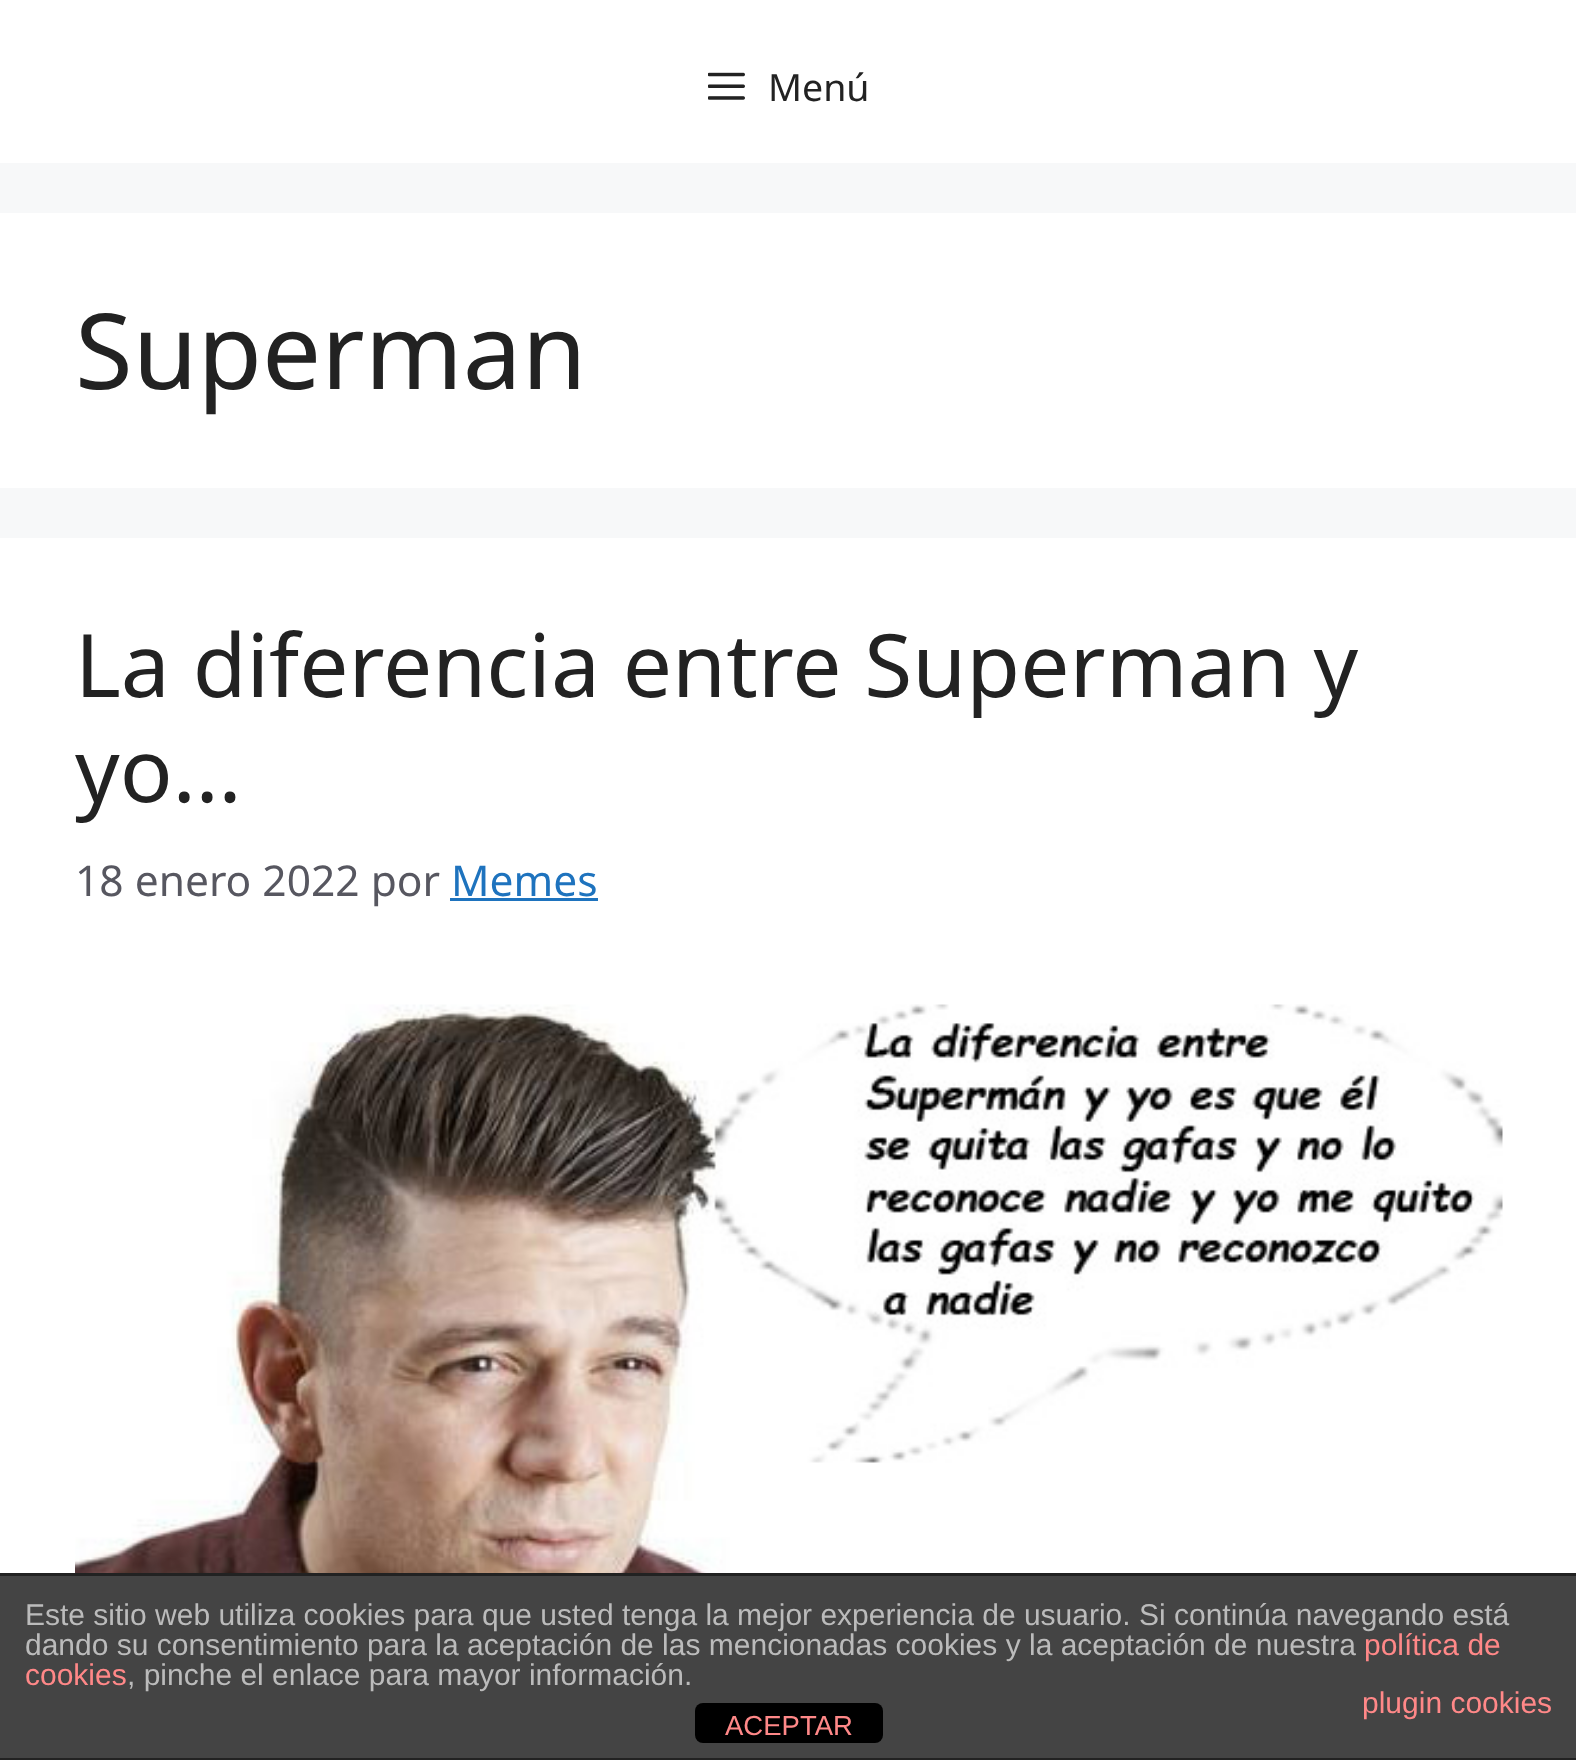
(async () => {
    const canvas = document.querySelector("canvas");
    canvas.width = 1576;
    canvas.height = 1760;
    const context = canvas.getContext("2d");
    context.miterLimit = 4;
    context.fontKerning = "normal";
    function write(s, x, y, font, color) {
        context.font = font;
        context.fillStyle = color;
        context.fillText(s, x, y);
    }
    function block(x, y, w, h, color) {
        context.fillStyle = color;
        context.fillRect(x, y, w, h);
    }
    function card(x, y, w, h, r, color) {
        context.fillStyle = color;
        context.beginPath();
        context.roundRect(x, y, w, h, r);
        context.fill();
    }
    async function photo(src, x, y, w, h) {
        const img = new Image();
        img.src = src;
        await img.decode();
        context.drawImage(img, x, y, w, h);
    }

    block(0, 0, 1576, 1760, "rgb(247, 248, 249)");
    block(0, 0, 1576, 163, "rgb(255, 255, 255)");
    await photo("media/1.png", 708, 72, 37, 28);
    write("Menú", 768, 101, "37.5px Noto Sans", "rgb(34, 34, 34)");
    block(0, 213, 1576, 275, "rgb(255, 255, 255)");
    write("Superman", 75, 389, "105px Noto Sans", "rgb(34, 34, 34)");
    block(0, 538, 1576, 1035, "rgb(255, 255, 255)");
    write("La diferencia entre Superman y", 75, 697, "87.5px Noto Sans", "rgb(34, 34, 34)");
    write("yo…", 75, 802, "87.5px Noto Sans", "rgb(34, 34, 34)");
    write("18 enero 2022 por", 75, 896, "42.5px Noto Sans", "rgb(87, 87, 96)");
    write("Memes", 451, 896, "42.5px Noto Sans", "rgb(30, 115, 190)");
    block(450, 898, 148, 3, "rgb(30, 115, 190)");
    await photo("media/2.png", 75, 1004, 1428, 569);
    block(0, 1576, 1576, 182, "rgb(68, 68, 68)");
    block(0, 1573, 1576, 3, "rgb(34, 34, 34)");
    block(0, 1758, 1576, 2, "rgb(34, 34, 34)");
    write("Este sitio web utiliza cookies para que usted tenga la mejor experiencia de usuario. Si continúa navegando está", 25, 1625, "30px Liberation Sans", "rgb(187, 187, 187)");
    write("dando su consentimiento para la aceptación de las mencionadas cookies y la aceptación de nuestra", 25, 1655, "30px Liberation Sans", "rgb(187, 187, 187)");
    write("política de", 1364, 1655, "30px Liberation Sans", "rgb(255, 136, 136)");
    write("cookies", 25, 1685, "30px Liberation Sans", "rgb(255, 136, 136)");
    write(", pinche el enlace para mayor información.", 127, 1685, "30px Liberation Sans", "rgb(187, 187, 187)");
    write("plugin cookies", 1362, 1713, "30px Liberation Sans", "rgb(255, 136, 136)");
    card(695, 1703, 188, 40, 8, "rgb(0, 0, 0)");
    write("ACEPTAR", 725, 1735, "27.5px Liberation Sans", "rgb(255, 136, 136)");
})();
